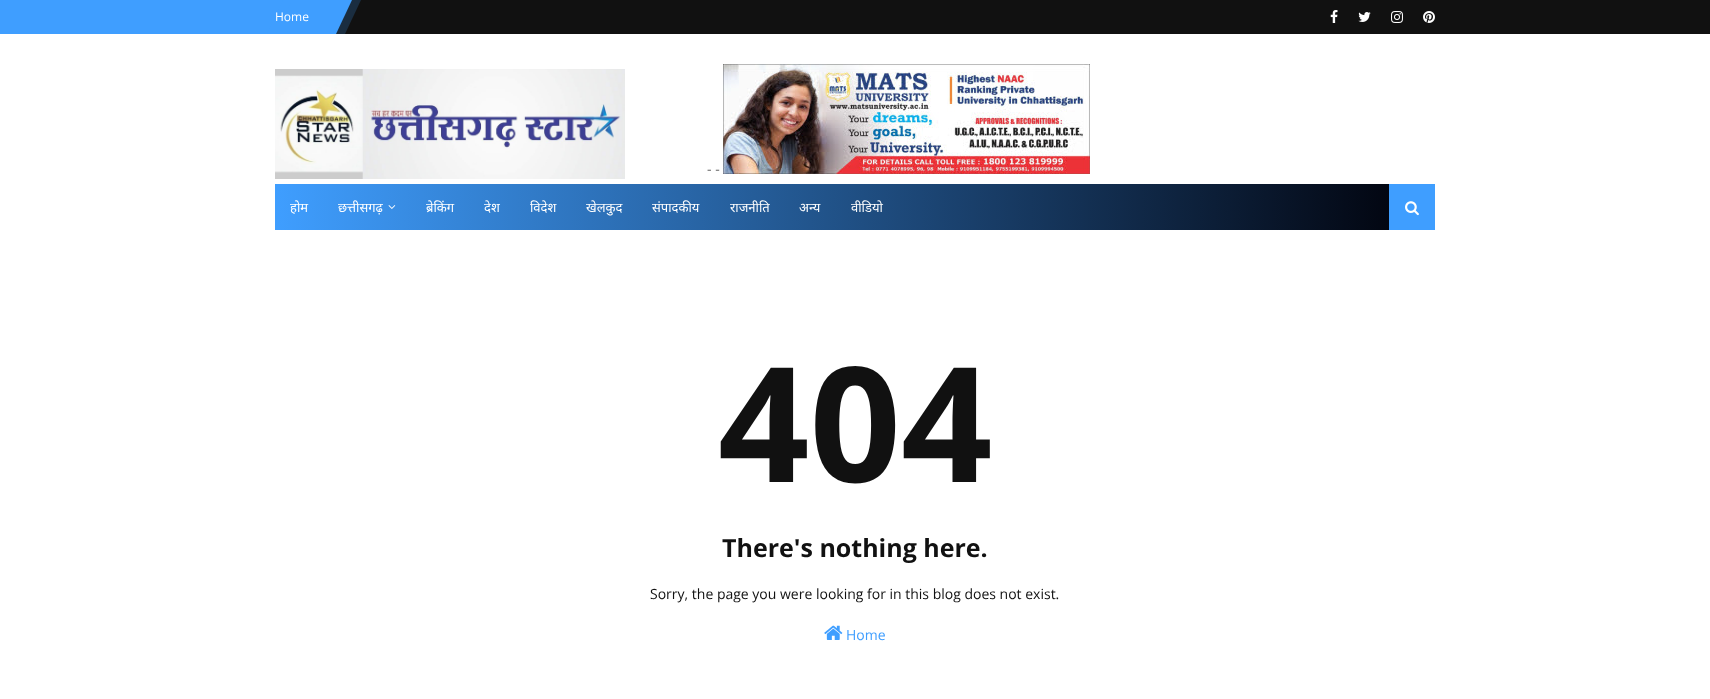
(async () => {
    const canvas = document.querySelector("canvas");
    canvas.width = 1710;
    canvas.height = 699;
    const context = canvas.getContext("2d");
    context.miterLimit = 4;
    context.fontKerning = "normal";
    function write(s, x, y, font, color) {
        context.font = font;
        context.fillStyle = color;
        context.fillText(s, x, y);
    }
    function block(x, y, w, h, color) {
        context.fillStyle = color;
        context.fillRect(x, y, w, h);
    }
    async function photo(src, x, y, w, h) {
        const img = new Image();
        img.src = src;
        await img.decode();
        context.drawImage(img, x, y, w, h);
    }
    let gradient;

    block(0, 0, 1710, 699, "rgb(255, 255, 255)");
    block(336, 0, 1374, 34, "rgb(17, 17, 17)");
    block(0, 0, 283, 34, "rgb(63, 158, 255)");
    context.beginPath();
    context.moveTo(283, 0);
    context.lineTo(352, 0);
    context.lineTo(336, 34);
    context.lineTo(267, 34);
    context.closePath();
    context.fill();
    context.fillStyle = "rgba(63, 158, 255, 0.2)";
    context.beginPath();
    context.moveTo(292, 0);
    context.lineTo(361, 0);
    context.lineTo(345, 34);
    context.lineTo(276, 34);
    context.closePath();
    context.fill();
    write("Home", 275, 21, "12px Open Sans", "rgb(255, 255, 255)");
    await photo("media/1.png", 1330, 10, 8, 13);
    await photo("media/2.png", 1358, 12, 13, 10);
    await photo("media/3.png", 1391, 11, 12, 12);
    await photo("media/4.png", 1423, 11, 12, 12);
    await photo("media/5.png", 275, 69, 350, 110);
    write("- -", 707, 174, "14px Open Sans", "rgb(101, 101, 101)");
    await photo("media/6.png", 723, 64, 367, 110);
    gradient = context.createLinearGradient(275, 207, 1435, 207);
    gradient.addColorStop(0, "rgb(63, 158, 255)");
    gradient.addColorStop(1, "rgb(0, 0, 8)");
    context.fillStyle = gradient;
    context.fillRect(275, 184, 1114, 46);
    write("होम", 290, 212, "13px Noto Sans", "rgb(255, 255, 255)");
    write("छत्तीसगढ़", 338, 212, "13px Noto Sans", "rgb(255, 255, 255)");
    await photo("media/7.png", 388, 205, 8, 4);
    write("ब्रेकिंग", 426, 212, "13px Noto Sans", "rgb(255, 255, 255)");
    write("देश", 484, 212, "13px Noto Sans", "rgb(255, 255, 255)");
    write("विदेश", 530, 212, "13px Noto Sans", "rgb(255, 255, 255)");
    write("खेलकुद", 586, 212, "13px Noto Sans", "rgb(255, 255, 255)");
    write("संपादकीय", 652, 212, "13px Noto Sans", "rgb(255, 255, 255)");
    write("राजनीति", 730, 212, "13px Noto Sans", "rgb(255, 255, 255)");
    write("अन्य", 799, 212, "13px Noto Sans", "rgb(255, 255, 255)");
    write("वीडियो", 851, 212, "13px Noto Sans", "rgb(255, 255, 255)");
    block(1389, 184, 46, 46, "rgb(63, 158, 255)");
    await photo("media/8.png", 1405, 201, 14, 15);
    write("404", 718, 482, "bold 160px Open Sans", "rgb(17, 17, 17)");
    write("There's nothing here.", 722, 557, "bold 25px Open Sans", "rgb(17, 17, 17)");
    write("Sorry, the page you were looking for in this blog does not exist.", 650, 599, "14px Open Sans", "rgb(17, 17, 17)");
    await photo("media/9.png", 824, 625, 19, 15);
    write("Home", 846, 640, "14px Open Sans", "rgb(63, 158, 255)");
})();
